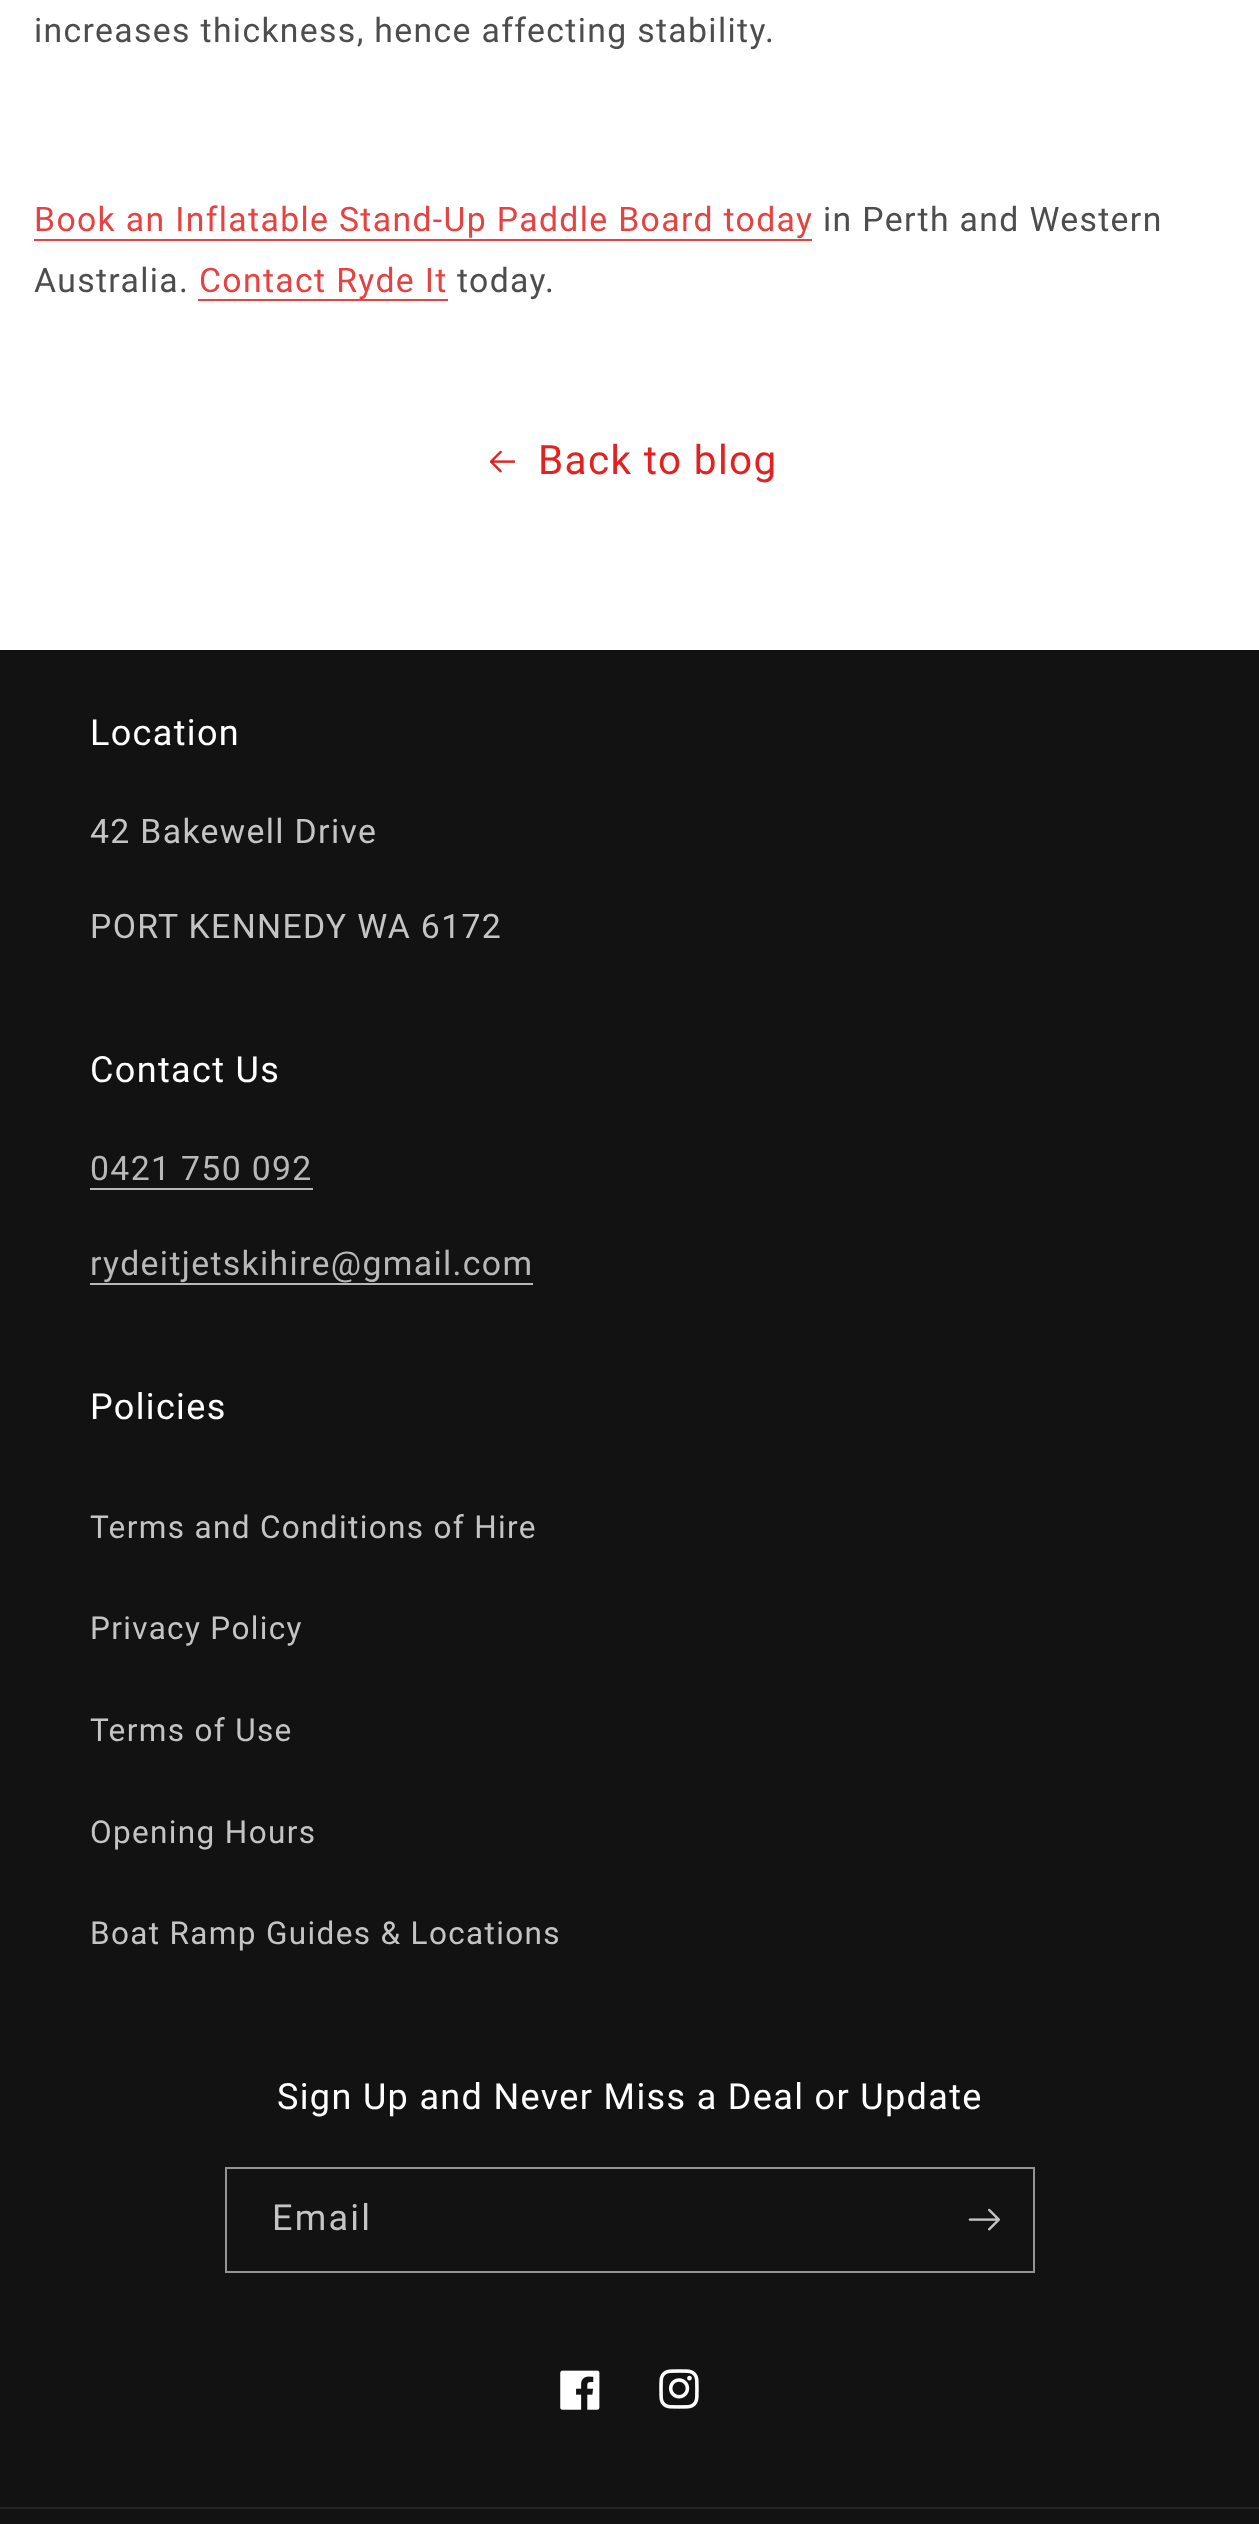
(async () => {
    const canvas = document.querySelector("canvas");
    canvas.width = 1259;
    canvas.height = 2524;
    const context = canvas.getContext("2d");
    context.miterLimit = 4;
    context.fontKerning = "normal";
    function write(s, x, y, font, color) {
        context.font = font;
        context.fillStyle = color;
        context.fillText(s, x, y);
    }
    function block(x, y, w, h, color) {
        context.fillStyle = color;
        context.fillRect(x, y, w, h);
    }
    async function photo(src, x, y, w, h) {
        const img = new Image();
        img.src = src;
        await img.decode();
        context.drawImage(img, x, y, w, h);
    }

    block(0, 0, 1259, 2524, "rgb(255, 255, 255)");
    context.letterSpacing = "1.35px";
    write("increases thickness, hence affecting stability.", 34, 42, "33.75px Roboto", "rgb(77, 77, 77)");
    write("Book an Inflatable Stand-Up Paddle Board today", 34, 231, "33.75px Roboto", "rgb(230, 66, 65)");
    block(34, 239, 778, 2, "rgb(230, 66, 65)");
    write("in Perth and Western", 823, 231, "33.75px Roboto", "rgb(77, 77, 77)");
    write("Australia.", 34, 292, "33.75px Roboto", "rgb(77, 77, 77)");
    block(198, 299, 250, 2, "rgb(230, 66, 65)");
    write("Contact Ryde It", 199, 292, "33.75px Roboto", "rgb(230, 66, 65)");
    write("today.", 457, 292, "33.75px Roboto", "rgb(77, 77, 77)");
    await photo("media/1.png", 489, 450, 26, 23);
    write("Back to blog", 538, 474, "40.5px Roboto", "rgb(226, 33, 32)");
    block(0, 650, 1259, 1874, "rgb(18, 18, 18)");
    write("Location", 90, 745, "36px Roboto", "rgb(255, 255, 255)");
    write("42 Bakewell Drive", 90, 843, "33.75px Roboto", "rgb(196, 196, 196)");
    write("PORT KENNEDY WA 6172", 90, 938, "33.75px Roboto", "rgb(196, 196, 196)");
    write("Contact Us", 90, 1082, "36px Roboto", "rgb(255, 255, 255)");
    write("0421 750 092", 90, 1180, "33.75px Roboto", "rgb(184, 184, 184)");
    block(90, 1188, 223, 2, "rgb(184, 184, 184)");
    write("rydeitjetskihire@gmail.com", 90, 1275, "33.75px Roboto", "rgb(184, 184, 184)");
    block(90, 1283, 443, 2, "rgb(184, 184, 184)");
    write("Policies", 90, 1419, "36px Roboto", "rgb(255, 255, 255)");
    write("Terms and Conditions of Hire", 90, 1538, "31.5px Roboto", "rgb(196, 196, 196)");
    write("Privacy Policy", 90, 1639, "31.5px Roboto", "rgb(196, 196, 196)");
    write("Terms of Use", 90, 1741, "31.5px Roboto", "rgb(196, 196, 196)");
    write("Opening Hours", 90, 1843, "31.5px Roboto", "rgb(196, 196, 196)");
    write("Boat Ramp Guides & Locations", 90, 1944, "31.5px Roboto", "rgb(196, 196, 196)");
    write("Sign Up and Never Miss a Deal or Update", 277, 2109, "36px Roboto", "rgb(255, 255, 255)");
    context.strokeStyle = "rgb(148, 148, 148)";
    context.lineWidth = 2;
    context.strokeRect(226, 2168, 808, 104);
    context.letterSpacing = "2.25px";
    write("Email", 272, 2230, "36px Roboto", "rgb(196, 196, 196)");
    await photo("media/2.png", 968, 2208, 32, 23);
    await photo("media/3.png", 560, 2370, 40, 40);
    await photo("media/4.png", 659, 2369, 40, 40);
    block(0, 2507, 1259, 2, "rgb(37, 37, 37)");
})();
